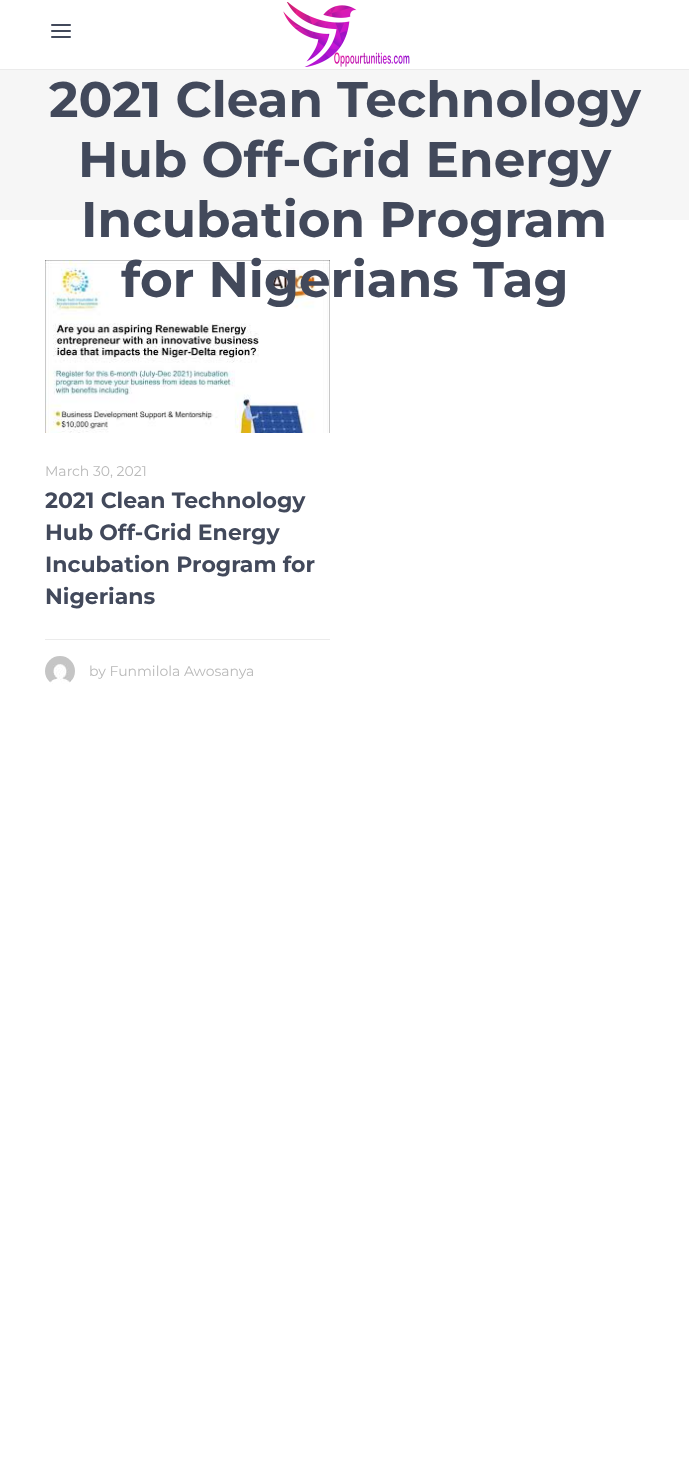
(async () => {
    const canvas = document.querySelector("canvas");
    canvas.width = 689;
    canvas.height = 1467;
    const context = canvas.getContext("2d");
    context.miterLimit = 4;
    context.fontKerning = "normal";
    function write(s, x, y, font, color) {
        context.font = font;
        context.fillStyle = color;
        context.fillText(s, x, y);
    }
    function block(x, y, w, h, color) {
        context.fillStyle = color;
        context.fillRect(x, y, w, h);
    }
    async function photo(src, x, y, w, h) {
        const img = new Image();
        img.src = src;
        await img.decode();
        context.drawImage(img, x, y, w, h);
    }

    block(0, 0, 689, 1467, "rgb(255, 255, 255)");
    block(0, 69, 689, 1, "rgb(235, 235, 235)");
    await photo("media/1.png", 51, 24, 20, 14);
    await photo("media/2.png", 283, 2, 127, 65);
    block(0, 70, 689, 150, "rgb(246, 246, 246)");
    write("2021 Clean Technology", 49, 117, "bold 50px Montserrat", "rgb(66, 73, 91)");
    write("Hub Off-Grid Energy", 78, 177, "bold 50px Montserrat", "rgb(66, 73, 91)");
    write("Incubation Program", 81, 237, "bold 50px Montserrat", "rgb(66, 73, 91)");
    await photo("media/3.png", 45, 260, 285, 173);
    write("for Nigerians Tag", 121, 297, "bold 50px Montserrat", "rgb(66, 73, 91)");
    write("March 30, 2021", 45, 476, "14px Montserrat", "rgb(185, 185, 185)");
    write("2021 Clean Technology", 45, 508, "bold 22px Montserrat", "rgb(66, 73, 91)");
    write("Hub Off-Grid Energy", 45, 540, "bold 22px Montserrat", "rgb(66, 73, 91)");
    write("Incubation Program for", 45, 572, "bold 22px Montserrat", "rgb(66, 73, 91)");
    write("Nigerians", 45, 604, "bold 22px Montserrat", "rgb(66, 73, 91)");
    block(45, 639, 285, 1, "rgb(235, 235, 235)");
    await photo("media/4.png", 45, 656, 30, 28);
    write("by Funmilola Awosanya", 89, 676, "14px Montserrat", "rgb(185, 185, 185)");
})();
